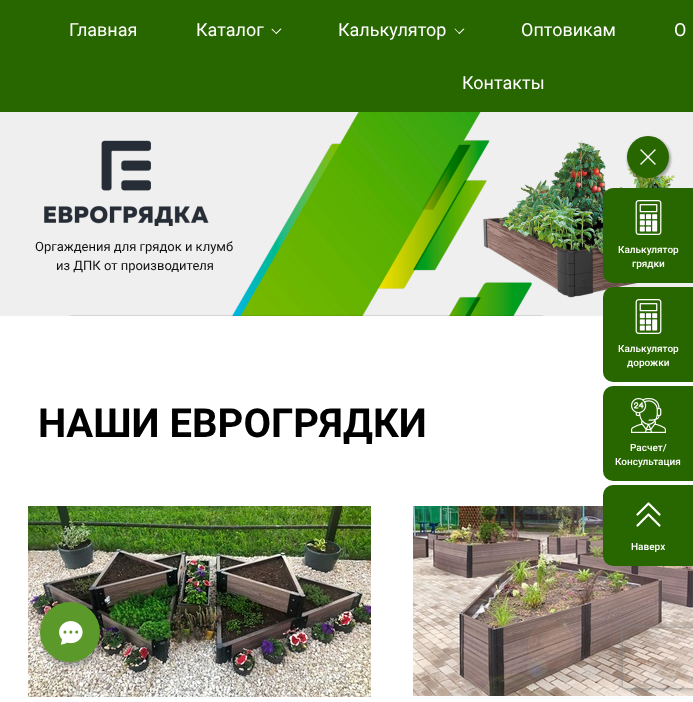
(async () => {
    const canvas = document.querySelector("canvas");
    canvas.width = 693;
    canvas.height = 702;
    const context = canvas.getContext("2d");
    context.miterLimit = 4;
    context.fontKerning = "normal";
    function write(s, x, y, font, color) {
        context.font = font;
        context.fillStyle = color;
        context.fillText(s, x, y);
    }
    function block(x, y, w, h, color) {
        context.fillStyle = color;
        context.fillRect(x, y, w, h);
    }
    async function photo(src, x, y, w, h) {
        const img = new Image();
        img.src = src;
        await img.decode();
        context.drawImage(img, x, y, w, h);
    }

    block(0, 0, 693, 702, "rgb(255, 255, 255)");
    block(0, 0, 693, 112, "rgb(40, 103, 0)");
    write("Главная", 69, 36, "18px Roboto", "rgb(255, 255, 255)");
    write("Каталог", 196, 36, "18px Roboto", "rgb(255, 255, 255)");
    context.beginPath();
    context.moveTo(276.5, 34);
    context.lineTo(271.5, 29.5);
    context.lineTo(272, 28.5);
    context.lineTo(277, 33.5);
    context.closePath();
    context.fill();
    context.beginPath();
    context.moveTo(276.5, 34);
    context.lineTo(275.5, 33.5);
    context.lineTo(280.5, 28.5);
    context.lineTo(281.5, 29);
    context.closePath();
    context.fill();
    write("Калькулятор", 338, 36, "18px Roboto", "rgb(255, 255, 255)");
    context.beginPath();
    context.moveTo(459.5, 34);
    context.lineTo(454.5, 29);
    context.lineTo(455, 28.5);
    context.lineTo(460, 33.5);
    context.closePath();
    context.fill();
    context.beginPath();
    context.moveTo(459.5, 34);
    context.lineTo(458.5, 33.5);
    context.lineTo(463.5, 28.5);
    context.lineTo(464.5, 29);
    context.closePath();
    context.fill();
    write("Оптовикам", 521, 36, "18px Roboto", "rgb(255, 255, 255)");
    write("О", 674, 36, "18px Roboto", "rgb(255, 255, 255)");
    write("Контакты", 462, 89, "18px Roboto", "rgb(255, 255, 255)");
    block(0, 112, 693, 204, "rgb(239, 239, 239)");
    await photo("media/1.png", 70, 112, 474, 204);
    await photo("media/2.png", 44, 140, 165, 86);
    await photo("media/3.png", 483, 140, 193, 158);
    write("Оргаждения для грядок и клумб", 35, 251, "13px Roboto", "rgb(17, 17, 17)");
    write("из ДПК от производителя", 56, 270, "13px Roboto", "rgb(17, 17, 17)");
    context.fillStyle = "rgba(0, 0, 0, 0.3)";
    context.filter = "blur(1px)";
    context.beginPath();
    context.roundRect(627, 137, 44, 44, 22);
    context.fill();
    context.filter = "none";
    context.fillStyle = "rgb(40, 103, 0)";
    context.beginPath();
    context.arc(648, 157, 21, 0, Math.PI * 2);
    context.fill();
    context.beginPath();
    context.moveTo(641, 150);
    context.lineTo(655, 164);
    context.moveTo(655, 150);
    context.lineTo(641, 164);
    context.strokeStyle = "rgb(255, 255, 255)";
    context.lineWidth = 1.4;
    context.lineCap = "round";
    context.lineJoin = "round";
    context.stroke();
    context.beginPath();
    context.roundRect(603, 188, 90, 95, [10, 0, 0, 10]);
    context.fill();
    await photo("media/4.png", 635, 200, 27, 35);
    write("Калькулятор", 618, 253, "500 10px Roboto", "rgb(255, 255, 255)");
    write("грядки", 632, 267, "500 10px Roboto", "rgb(255, 255, 255)");
    context.fillStyle = "rgb(40, 103, 0)";
    context.beginPath();
    context.roundRect(603, 287, 90, 95, [10, 0, 0, 10]);
    context.fill();
    await photo("media/4.png", 635, 299, 27, 35);
    write("Калькулятор", 618, 352, "500 10px Roboto", "rgb(255, 255, 255)");
    write("дорожки", 627, 366, "500 10px Roboto", "rgb(255, 255, 255)");
    context.fillStyle = "rgb(40, 103, 0)";
    context.beginPath();
    context.roundRect(603, 386, 90, 95, [10, 0, 0, 10]);
    context.fill();
    await photo("media/5.png", 631, 398, 35, 35);
    write("Расчет/", 630, 451, "500 10px Roboto", "rgb(255, 255, 255)");
    write("Консультация", 615, 465, "500 10px Roboto", "rgb(255, 255, 255)");
    await photo("media/7.png", 413, 506, 280, 190);
    context.fillStyle = "rgb(40, 103, 0)";
    context.beginPath();
    context.roundRect(603, 485, 90, 81, [10, 0, 0, 10]);
    context.fill();
    context.beginPath();
    context.moveTo(637.5, 525.5);
    context.lineTo(648.5, 514.5);
    context.lineTo(659.5, 525.5);
    context.moveTo(637.5, 514.5);
    context.lineTo(648.5, 503.5);
    context.lineTo(659.5, 514.5);
    context.lineWidth = 2.2;
    context.stroke();
    write("Наверх", 631, 550, "500 10px Roboto", "rgb(255, 255, 255)");
    write("НАШИ ЕВРОГРЯДКИ", 38, 437, "bold 40px Roboto", "rgb(0, 0, 0)");
    await photo("media/6.png", 28, 506, 343, 191);
    context.fillStyle = "rgba(0, 0, 0, 0.3)";
    context.filter = "blur(2.5px)";
    context.beginPath();
    context.roundRect(41, 604, 62, 62, 31);
    context.fill();
    context.filter = "none";
    context.fillStyle = "rgb(91, 153, 42)";
    context.beginPath();
    context.arc(70, 632, 30, 0, Math.PI * 2);
    context.fill();
    await photo("media/8.png", 59, 621, 24, 24);
    context.save();
    context.beginPath();
    context.moveTo(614, 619);
    context.lineTo(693, 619);
    context.lineTo(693, 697);
    context.lineTo(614, 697);
    context.closePath();
    context.moveTo(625, 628);
    context.lineTo(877, 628);
    context.bezierCurveTo(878, 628, 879, 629, 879, 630);
    context.lineTo(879, 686);
    context.bezierCurveTo(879, 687, 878, 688, 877, 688);
    context.lineTo(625, 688);
    context.bezierCurveTo(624, 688, 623, 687, 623, 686);
    context.lineTo(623, 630);
    context.bezierCurveTo(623, 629, 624, 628, 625, 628);
    context.closePath();
    context.clip("evenodd");
    context.fillStyle = "rgb(128, 128, 128)";
    context.filter = "blur(2.5px)";
    context.beginPath();
    context.roundRect(623, 628, 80, 60, 2);
    context.fill();
    context.filter = "none";
    context.restore();
})();
